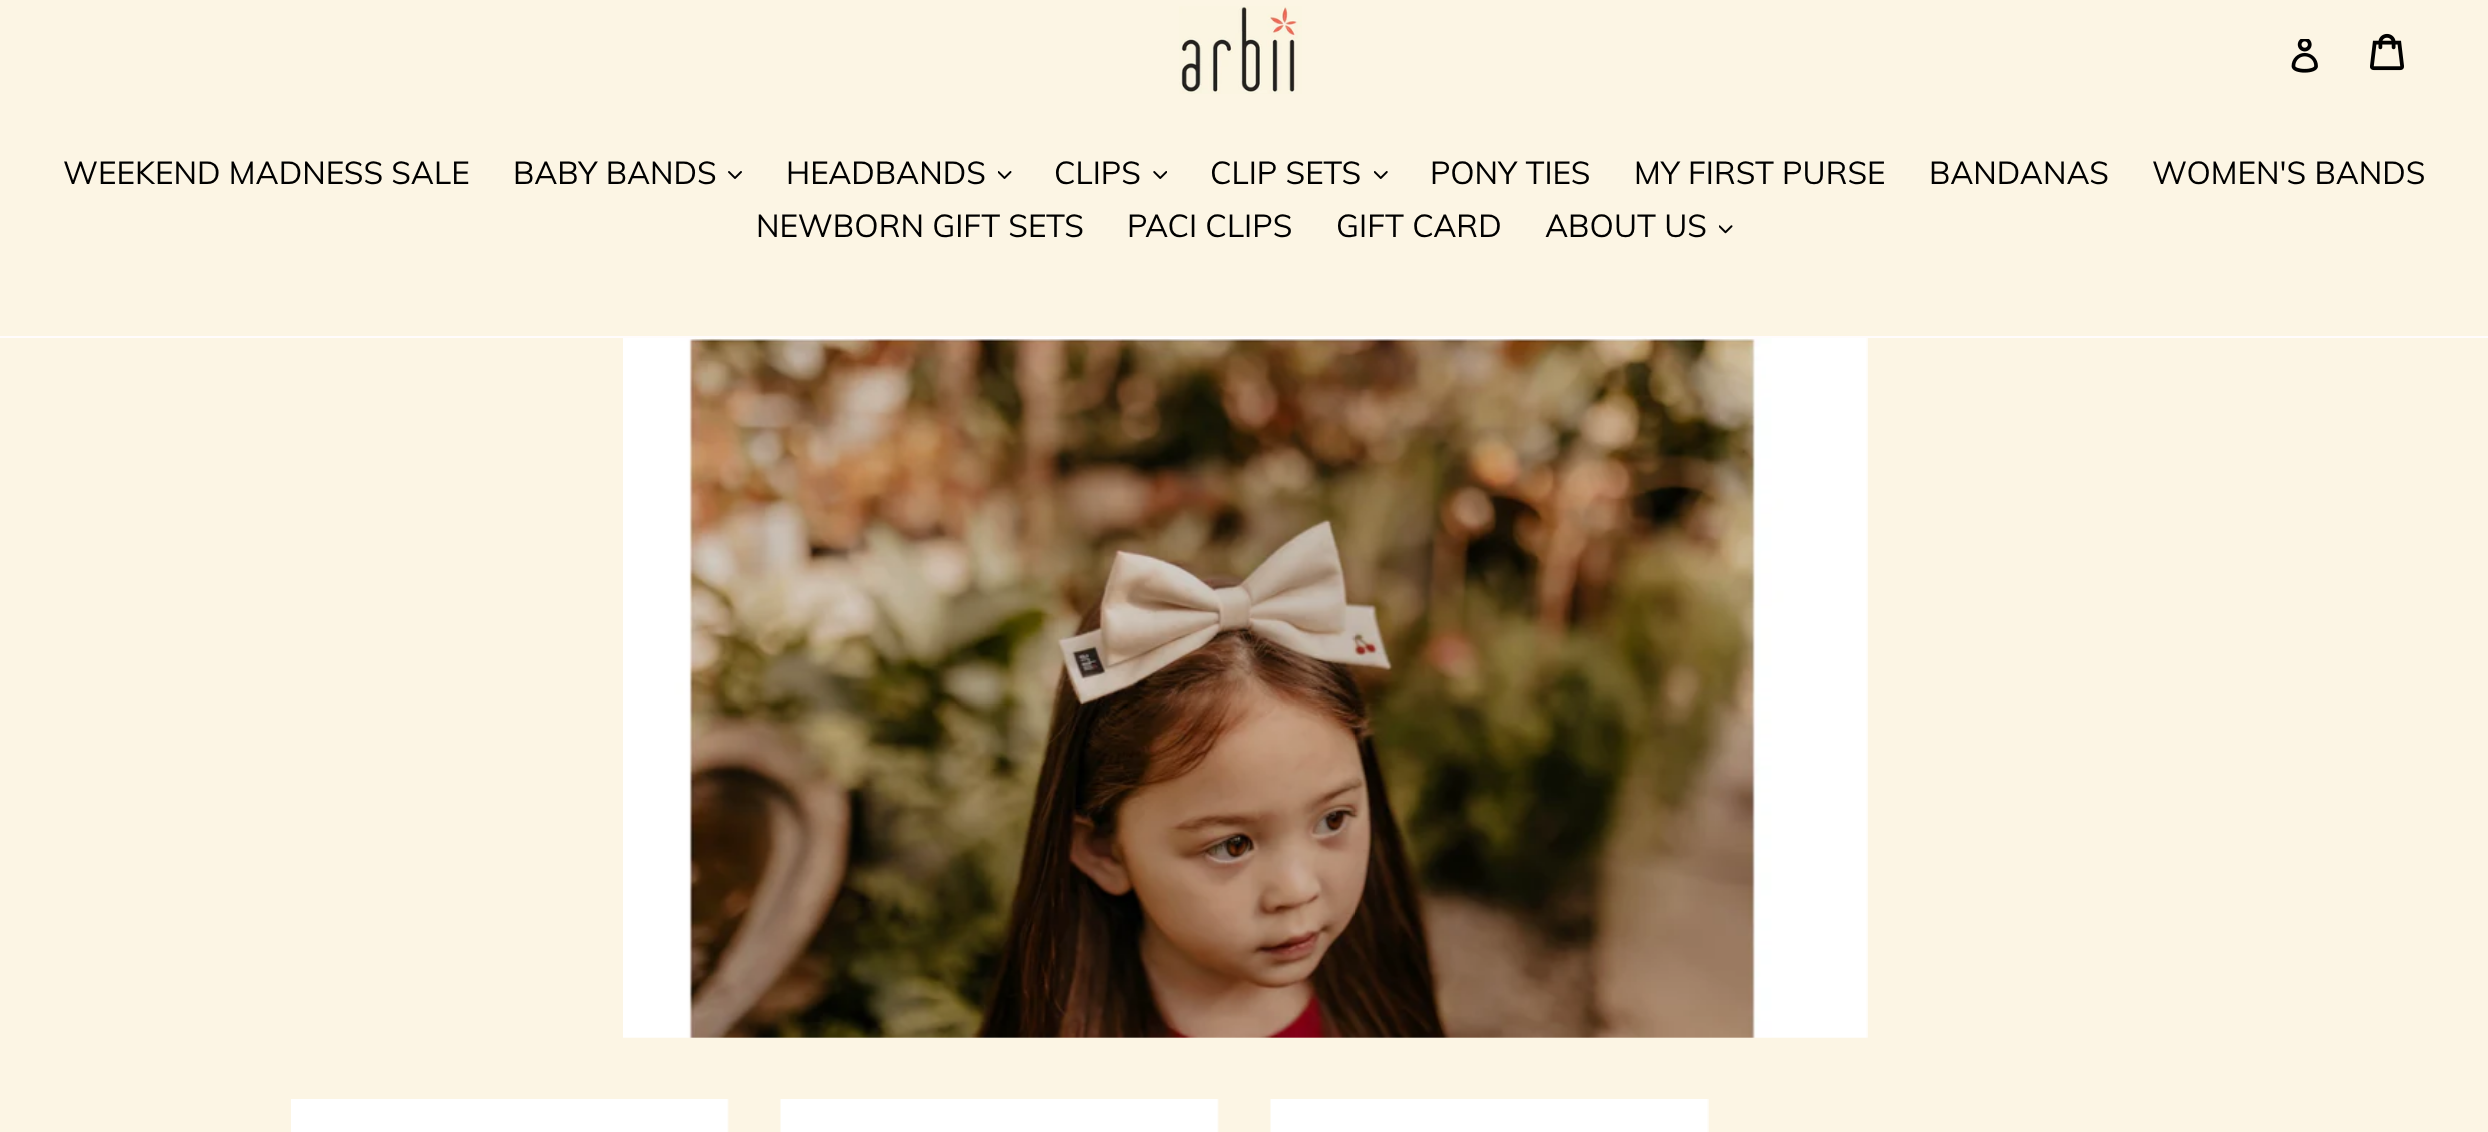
(async () => {
    const canvas = document.querySelector("canvas");
    canvas.width = 2488;
    canvas.height = 1132;
    const context = canvas.getContext("2d");
    context.miterLimit = 4;
    context.fontKerning = "normal";
    function write(s, x, y, font, color) {
        context.font = font;
        context.fillStyle = color;
        context.fillText(s, x, y);
    }
    function block(x, y, w, h, color) {
        context.fillStyle = color;
        context.fillRect(x, y, w, h);
    }
    async function photo(src, x, y, w, h) {
        const img = new Image();
        img.src = src;
        await img.decode();
        context.drawImage(img, x, y, w, h);
    }

    block(0, 0, 2488, 1132, "rgb(252, 245, 228)");
    await photo("media/1.png", 1179, 6, 123, 88);
    await photo("media/2.png", 2291, 39, 27, 34);
    await photo("media/3.png", 2370, 33, 34, 38);
    block(0, 336, 2488, 2, "rgb(255, 252, 252)");
    write("WEEKEND MADNESS SALE", 63, 184, "31.5px Muli", "rgb(0, 0, 0)");
    write("BABY BANDS", 513, 184, "31.5px Muli", "rgb(0, 0, 0)");
    await photo("media/4.png", 728, 171, 14, 8);
    write("HEADBANDS", 786, 184, "31.5px Muli", "rgb(0, 0, 0)");
    await photo("media/5.png", 998, 171, 14, 8);
    write("CLIPS", 1054, 184, "31.5px Muli", "rgb(0, 0, 0)");
    await photo("media/6.png", 1153, 171, 14, 8);
    write("CLIP SETS", 1210, 184, "31.5px Muli", "rgb(0, 0, 0)");
    await photo("media/7.png", 1374, 171, 14, 8);
    write("PONY TIES", 1430, 184, "31.5px Muli", "rgb(0, 0, 0)");
    write("MY FIRST PURSE", 1634, 184, "31.5px Muli", "rgb(0, 0, 0)");
    write("BANDANAS", 1929, 184, "31.5px Muli", "rgb(0, 0, 0)");
    write("WOMEN'S BANDS", 2152, 184, "31.5px Muli", "rgb(0, 0, 0)");
    write("NEWBORN GIFT SETS", 756, 237, "31.5px Muli", "rgb(0, 0, 0)");
    write("PACI CLIPS", 1127, 237, "31.5px Muli", "rgb(0, 0, 0)");
    write("GIFT CARD", 1336, 237, "31.5px Muli", "rgb(0, 0, 0)");
    write("ABOUT US", 1545, 237, "31.5px Muli", "rgb(0, 0, 0)");
    await photo("media/8.png", 1719, 225, 14, 9);
    await photo("media/9.png", 623, 338, 1245, 700);
    await photo("media/10.png", 291, 1099, 438, 33);
    await photo("media/11.png", 780, 1099, 439, 33);
    await photo("media/12.png", 1270, 1099, 439, 33);
})();
